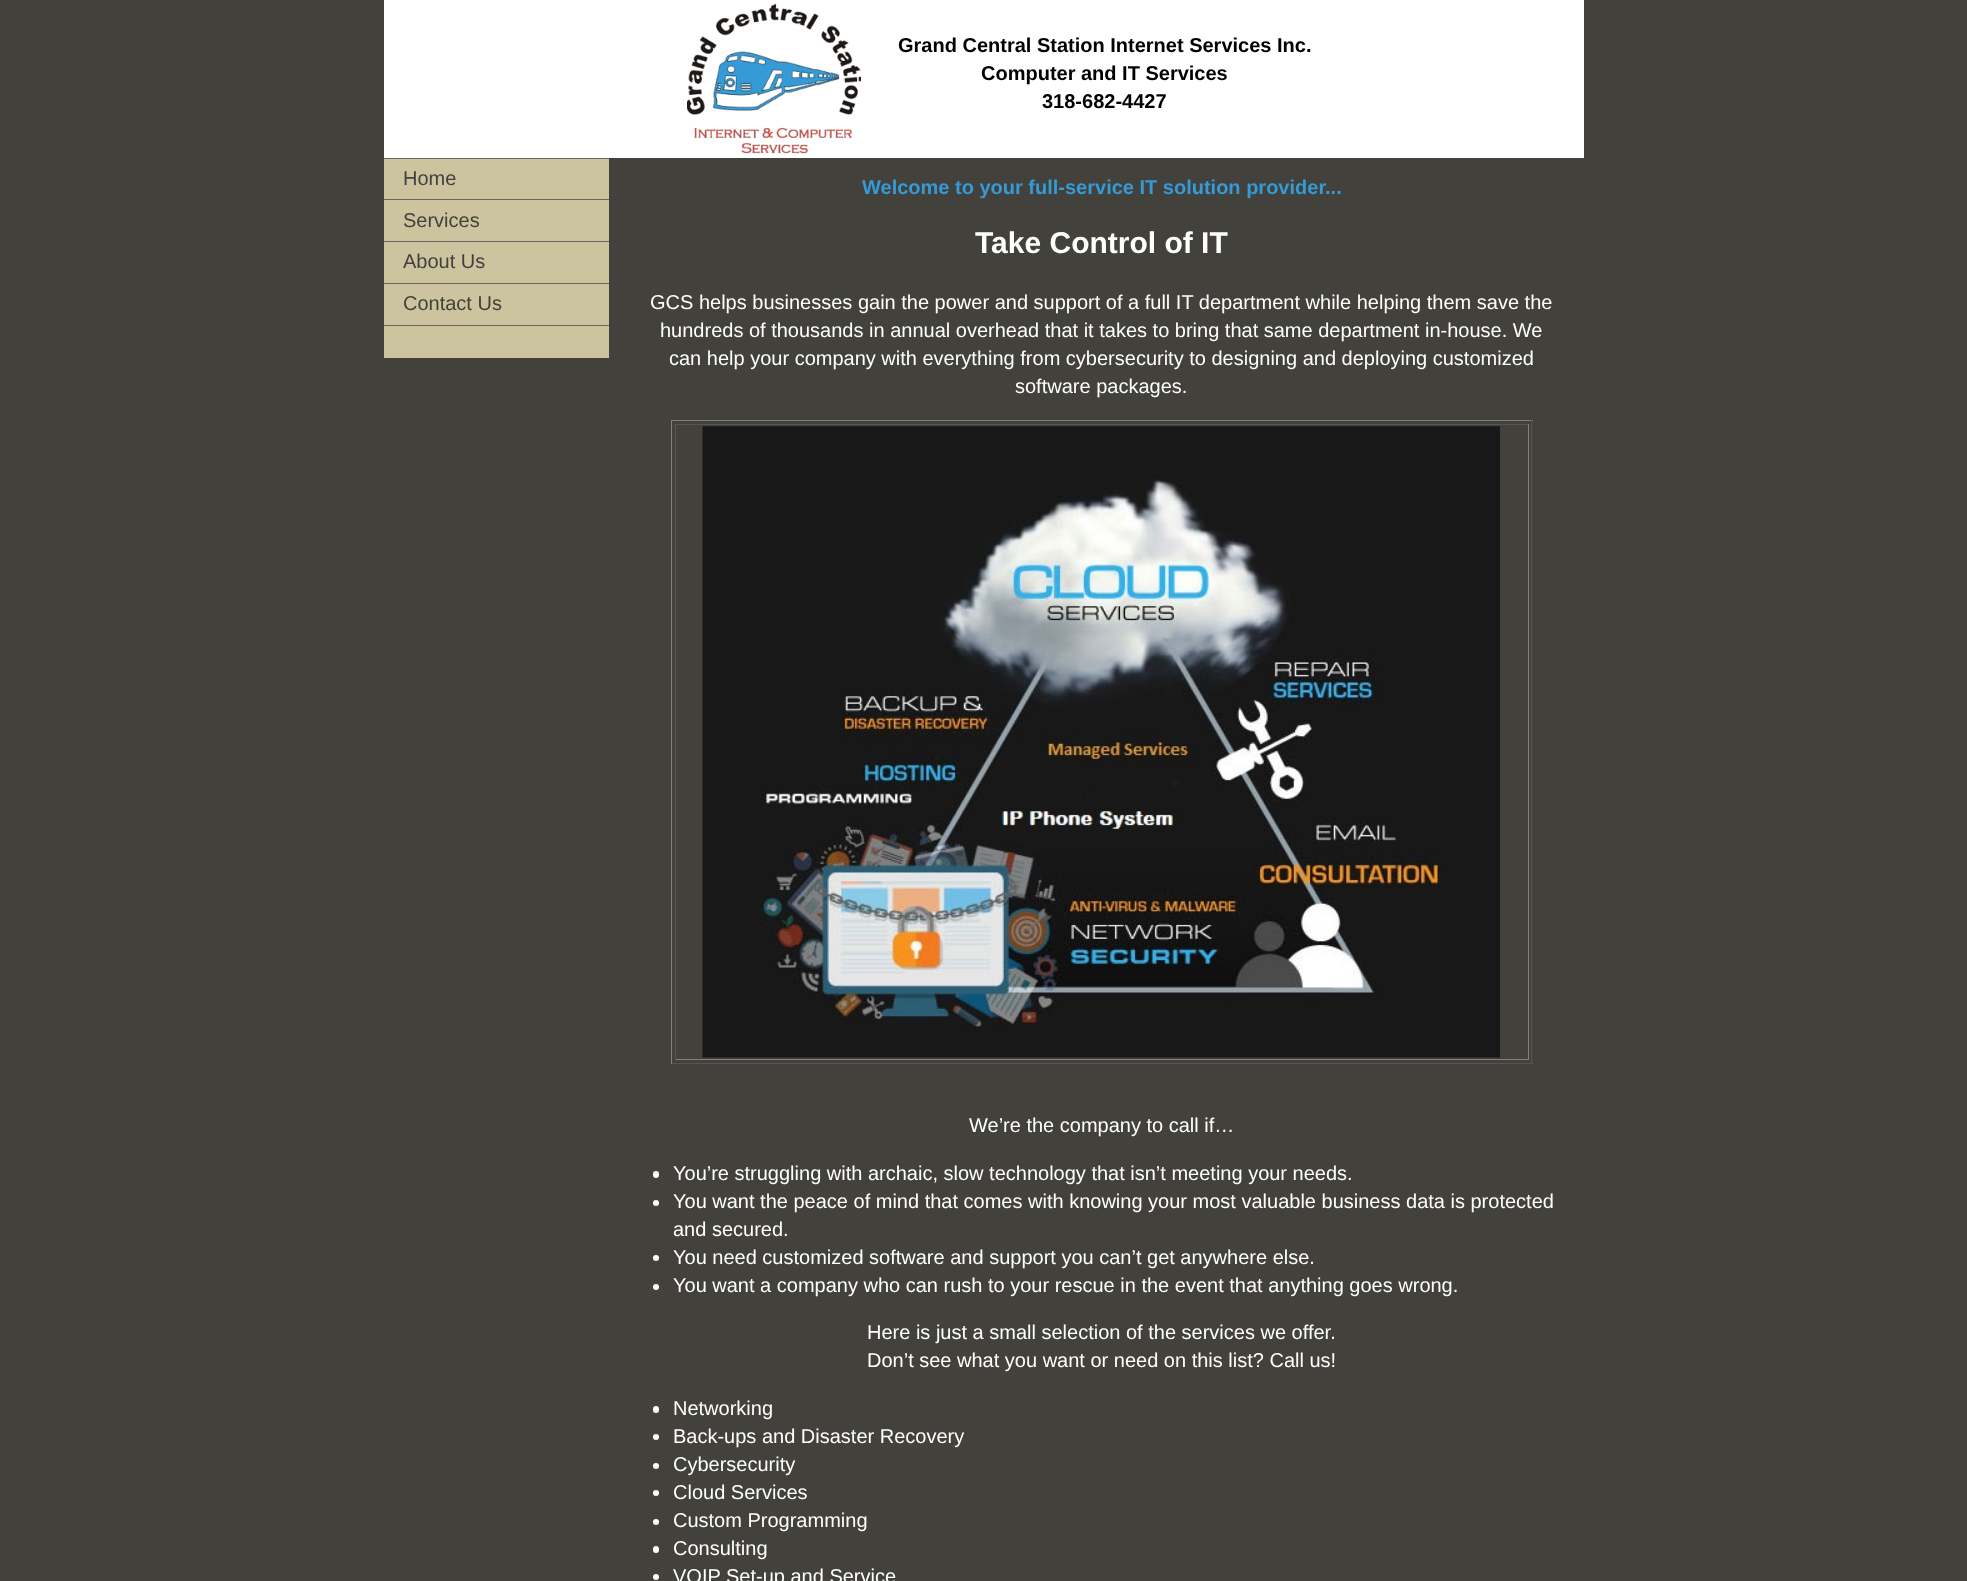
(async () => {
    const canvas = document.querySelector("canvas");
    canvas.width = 1967;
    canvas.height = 1581;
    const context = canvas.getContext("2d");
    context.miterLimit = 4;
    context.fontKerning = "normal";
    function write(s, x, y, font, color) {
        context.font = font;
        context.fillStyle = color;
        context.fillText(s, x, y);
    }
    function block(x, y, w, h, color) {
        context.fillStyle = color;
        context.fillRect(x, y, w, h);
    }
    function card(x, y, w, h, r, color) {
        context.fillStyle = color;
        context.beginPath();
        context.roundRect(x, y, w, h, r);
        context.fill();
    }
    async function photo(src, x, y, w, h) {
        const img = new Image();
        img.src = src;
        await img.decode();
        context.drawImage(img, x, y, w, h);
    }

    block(0, 0, 1967, 1581, "rgb(66, 65, 60)");
    block(384, 0, 1200, 158, "rgb(255, 255, 255)");
    await photo("media/1.png", 687, 3, 174, 151);
    write("Grand Central Station Internet Services Inc.", 898, 52, "bold 20px Liberation Sans", "rgb(0, 0, 0)");
    write("Computer and IT Services", 981, 80, "bold 20px Liberation Sans", "rgb(0, 0, 0)");
    write("318-682-4427", 1042, 108, "bold 20px Liberation Sans", "rgb(0, 0, 0)");
    block(384, 159, 225, 199, "rgb(204, 196, 159)");
    block(384, 158, 225, 1, "rgb(102, 102, 102)");
    block(384, 199, 225, 1, "rgb(102, 102, 102)");
    write("Home", 403, 185, "20px Liberation Sans", "rgb(66, 65, 60)");
    block(384, 241, 225, 1, "rgb(102, 102, 102)");
    write("Services", 403, 227, "20px Liberation Sans", "rgb(66, 65, 60)");
    block(384, 283, 225, 1, "rgb(102, 102, 102)");
    write("About Us", 403, 268, "20px Liberation Sans", "rgb(66, 65, 60)");
    block(384, 325, 225, 1, "rgb(102, 102, 102)");
    write("Contact Us", 403, 310, "20px Liberation Sans", "rgb(66, 65, 60)");
    write("Welcome to your full-service IT solution provider...", 862, 194, "bold 20px Liberation Sans", "rgb(53, 154, 214)");
    write("Take Control of IT", 975, 253, "bold 30px Liberation Sans", "rgb(255, 255, 255)");
    write("GCS helps businesses gain the power and support of a full IT department while helping them save the", 650, 309, "20px Liberation Sans", "rgb(255, 255, 255)");
    write("hundreds of thousands in annual overhead that it takes to bring that same department in-house. We", 660, 337, "20px Liberation Sans", "rgb(255, 255, 255)");
    write("can help your company with everything from cybersecurity to designing and deploying customized", 669, 365, "20px Liberation Sans", "rgb(255, 255, 255)");
    write("software packages.", 1015, 393, "20px Liberation Sans", "rgb(255, 255, 255)");
    block(671, 420, 862, 1, "rgb(128, 128, 128)");
    block(1531, 420, 1, 644, "rgb(85, 85, 85)");
    block(671, 1063, 862, 1, "rgb(85, 85, 85)");
    block(671, 420, 1, 644, "rgb(128, 128, 128)");
    block(675, 424, 854, 1, "rgb(85, 85, 85)");
    block(1528, 424, 1, 636, "rgb(128, 128, 128)");
    block(675, 1059, 854, 1, "rgb(128, 128, 128)");
    block(675, 424, 1, 636, "rgb(85, 85, 85)");
    await photo("media/2.png", 702, 426, 798, 632);
    write("We’re the company to call if…", 969, 1132, "20px Liberation Sans", "rgb(255, 255, 255)");
    card(653, 1171, 6, 7, 3, "rgb(255, 255, 255)");
    write("You’re struggling with archaic, slow technology that isn’t meeting your needs.", 673, 1180, "20px Liberation Sans", "rgb(255, 255, 255)");
    context.beginPath();
    context.arc(656, 1203, 3, 0, Math.PI * 2);
    context.fill();
    write("You want the peace of mind that comes with knowing your most valuable business data is protected", 673, 1208, "20px Liberation Sans", "rgb(255, 255, 255)");
    write("and secured.", 673, 1236, "20px Liberation Sans", "rgb(255, 255, 255)");
    context.beginPath();
    context.arc(656, 1258, 3, 0, Math.PI * 2);
    context.fill();
    write("You need customized software and support you can’t get anywhere else.", 673, 1264, "20px Liberation Sans", "rgb(255, 255, 255)");
    context.beginPath();
    context.arc(656, 1287, 3, 0, Math.PI * 2);
    context.fill();
    write("You want a company who can rush to your rescue in the event that anything goes wrong.", 673, 1292, "20px Liberation Sans", "rgb(255, 255, 255)");
    write("Here is just a small selection of the services we offer.", 867, 1339, "20px Liberation Sans", "rgb(255, 255, 255)");
    write("Don’t see what you want or need on this list? Call us!", 867, 1367, "20px Liberation Sans", "rgb(255, 255, 255)");
    card(653, 1406, 6, 7, 3, "rgb(255, 255, 255)");
    write("Networking", 673, 1415, "20px Liberation Sans", "rgb(255, 255, 255)");
    context.beginPath();
    context.arc(656, 1437, 3, 0, Math.PI * 2);
    context.fill();
    write("Back-ups and Disaster Recovery", 673, 1443, "20px Liberation Sans", "rgb(255, 255, 255)");
    context.beginPath();
    context.arc(656, 1466, 3, 0, Math.PI * 2);
    context.fill();
    write("Cybersecurity", 673, 1471, "20px Liberation Sans", "rgb(255, 255, 255)");
    context.beginPath();
    context.arc(656, 1493, 3, 0, Math.PI * 2);
    context.fill();
    write("Cloud Services", 673, 1499, "20px Liberation Sans", "rgb(255, 255, 255)");
    context.beginPath();
    context.arc(656, 1522, 3, 0, Math.PI * 2);
    context.fill();
    write("Custom Programming", 673, 1527, "20px Liberation Sans", "rgb(255, 255, 255)");
    card(653, 1546, 6, 7, 3, "rgb(255, 255, 255)");
    write("Consulting", 673, 1555, "20px Liberation Sans", "rgb(255, 255, 255)");
    context.beginPath();
    context.arc(656, 1577, 3, 0, Math.PI * 2);
    context.fill();
    write("VOIP Set-up and Service", 673, 1583, "20px Liberation Sans", "rgb(255, 255, 255)");
})();
